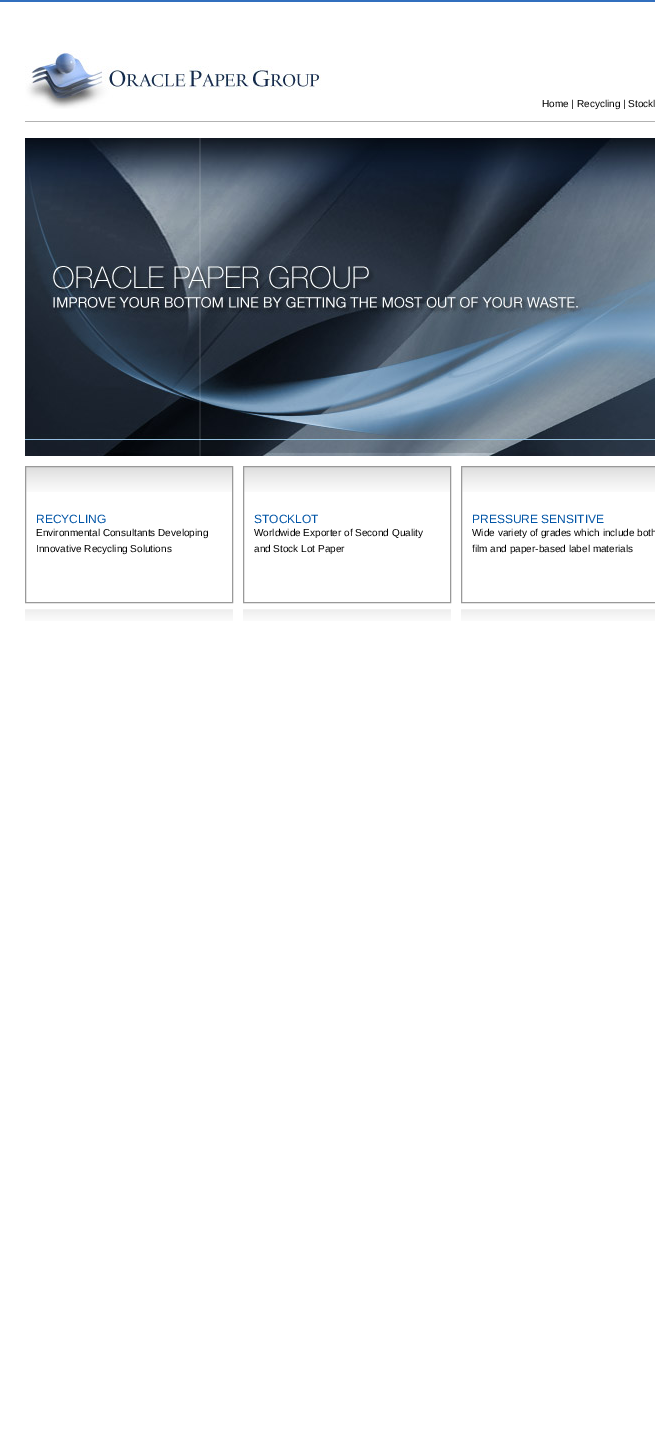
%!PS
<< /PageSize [655 1431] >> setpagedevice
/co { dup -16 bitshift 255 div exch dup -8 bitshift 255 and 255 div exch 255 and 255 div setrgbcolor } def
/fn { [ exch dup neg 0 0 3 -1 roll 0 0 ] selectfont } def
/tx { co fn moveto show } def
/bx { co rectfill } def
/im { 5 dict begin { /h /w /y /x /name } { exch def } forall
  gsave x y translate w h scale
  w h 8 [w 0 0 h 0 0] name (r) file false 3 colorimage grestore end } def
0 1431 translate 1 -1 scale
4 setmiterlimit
0 0 655 1431 16#FFFFFF bx
0 0 655 2 16#316FBE bx
(media/1.raw) 25 50 296 59 im
25 121 630 1 16#B2B2B2 bx
(media/2.raw) 25 138 630 318 im
(media/3.raw) 26 467 206 25 im
16#999999 co
25.5 466.5 207 136 rectstroke
(media/4.raw) 25 609 208 12 im
(media/3.raw) 244 467 206 25 im
243.5 466.5 207 136 rectstroke
(media/4.raw) 243 609 208 12 im
(media/5.raw) 462 467 193 25 im
461.5 466.5 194 136 rectstroke
(media/6.raw) 461 609 194 12 im
(Home | Recycling | Stockl) 542 107 /LiberationSans-Regular 10 16#000000 tx
(RECYCLING) 36 523 /LiberationSans-Regular 12 16#0054A6 tx
(Environmental Consultants Developing) 36 536 /LiberationSans-Regular 10 16#000000 tx
(Innovative Recycling Solutions) 36 552 /LiberationSans-Regular 10 16#000000 tx
(STOCKLOT) 254 523 /LiberationSans-Regular 12 16#0054A6 tx
(Worldwide Exporter of Second Quality) 254 536 /LiberationSans-Regular 10 16#000000 tx
(and Stock Lot Paper) 254 552 /LiberationSans-Regular 10 16#000000 tx
(PRESSURE SENSITIVE) 472 523 /LiberationSans-Regular 12 16#0054A6 tx
(Wide variety of grades which include both) 472 536 /LiberationSans-Regular 10 16#000000 tx
(film and paper-based label materials) 472 552 /LiberationSans-Regular 10 16#000000 tx
showpage
